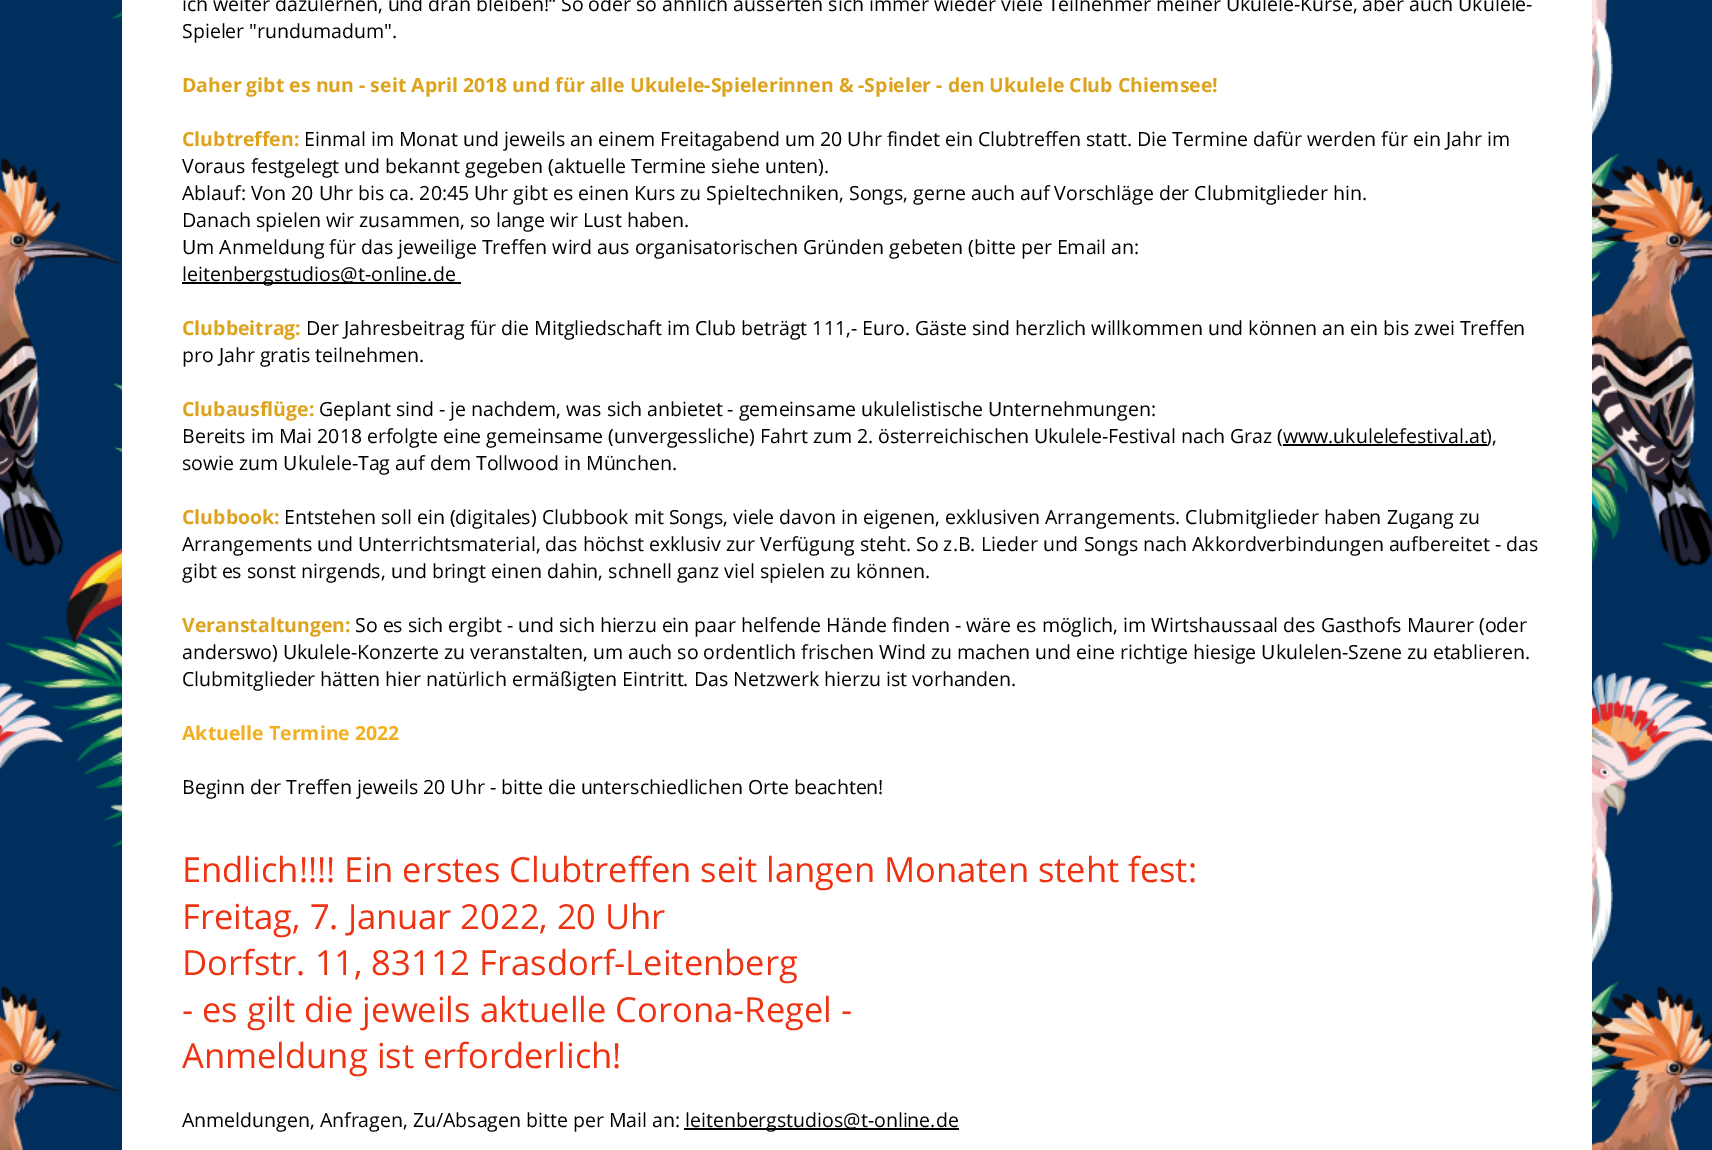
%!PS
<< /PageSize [1712 1150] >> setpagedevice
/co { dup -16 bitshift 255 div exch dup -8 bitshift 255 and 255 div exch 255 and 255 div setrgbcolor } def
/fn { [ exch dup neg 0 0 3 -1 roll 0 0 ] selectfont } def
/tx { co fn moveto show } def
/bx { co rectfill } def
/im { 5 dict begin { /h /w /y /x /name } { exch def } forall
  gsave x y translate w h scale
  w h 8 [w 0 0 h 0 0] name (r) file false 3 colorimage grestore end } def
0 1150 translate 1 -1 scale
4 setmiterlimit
0 0 1712 1150 16#002E5D bx
(media/1.raw) 0 0 1712 1150 im
122 0 1470 1150 16#FFFFFF bx
182 282 279 2 16#000000 bx
1283 444 204 2 16#000000 bx
684 1128 275 2 16#000000 bx
(ich weiter dazulernen, und dran bleiben!“ So oder so ähnlich äusserten sich immer wieder viele Teilnehmer meiner Ukulele-Kurse, aber auch Ukulele-) 182 11 /OpenSans-Regular 19.5 16#000000 tx
(Spieler "rundumadum".) 182 38 /OpenSans-Regular 19.5 16#000000 tx
(Daher gibt es nun - seit April 2018 und für alle Ukulele-Spielerinnen & -Spieler - den Ukulele Club Chiemsee!) 182 92 /OpenSans-Bold 19.5 16#DDA31E tx
(Clubtreffen:) 182 146 /OpenSans-Bold 19.5 16#DDA31E tx
(Einmal im Monat und jeweils an einem Freitagabend um 20 Uhr findet ein Clubtreffen statt. Die Termine dafür werden für ein Jahr im) 304 146 /OpenSans-Regular 19.5 16#000000 tx
(Voraus festgelegt und bekannt gegeben \(aktuelle Termine siehe unten\).) 182 173 /OpenSans-Regular 19.5 16#000000 tx
(Ablauf: Von 20 Uhr bis ca. 20:45 Uhr gibt es einen Kurs zu Spieltechniken, Songs, gerne auch auf Vorschläge der Clubmitglieder hin.) 182 200 /OpenSans-Regular 19.5 16#000000 tx
(Danach spielen wir zusammen, so lange wir Lust haben.) 182 227 /OpenSans-Regular 19.5 16#000000 tx
(Um Anmeldung für das jeweilige Treffen wird aus organisatorischen Gründen gebeten \(bitte per Email an:) 182 254 /OpenSans-Regular 19.5 16#000000 tx
(leitenbergstudios@t-online.de) 182 281 /OpenSans-Regular 19.5 16#000000 tx
(Clubbeitrag:) 182 335 /OpenSans-Bold 19.5 16#DDA31E tx
(Der Jahresbeitrag für die Mitgliedschaft im Club beträgt 111,- Euro. Gäste sind herzlich willkommen und können an ein bis zwei Treffen) 306 335 /OpenSans-Regular 19.5 16#000000 tx
(pro Jahr gratis teilnehmen.) 182 362 /OpenSans-Regular 19.5 16#000000 tx
(Clubausflüge:) 182 416 /OpenSans-Bold 19.5 16#DDA31E tx
(Geplant sind - je nachdem, was sich anbietet - gemeinsame ukulelistische Unternehmungen:) 319 416 /OpenSans-Regular 19.5 16#000000 tx
(Bereits im Mai 2018 erfolgte eine gemeinsame \(unvergessliche\) Fahrt zum 2. österreichischen Ukulele-Festival nach Graz \(www.ukulelefestival.at) 182 443 /OpenSans-Regular 19.5 16#000000 tx
(\),) 1486 443 /OpenSans-Regular 19.5 16#000000 tx
(sowie zum Ukulele-Tag auf dem Tollwood in München.) 182 470 /OpenSans-Regular 19.5 16#000000 tx
(Clubbook:) 182 524 /OpenSans-Bold 19.5 16#DDA31E tx
(Entstehen soll ein \(digitales\) Clubbook mit Songs, viele davon in eigenen, exklusiven Arrangements. Clubmitglieder haben Zugang zu) 284 524 /OpenSans-Regular 19.5 16#000000 tx
(Arrangements und Unterrichtsmaterial, das höchst exklusiv zur Verfügung steht. So z.B. Lieder und Songs nach Akkordverbindungen aufbereitet - das) 182 551 /OpenSans-Regular 19.5 16#000000 tx
(gibt es sonst nirgends, und bringt einen dahin, schnell ganz viel spielen zu können.) 182 578 /OpenSans-Regular 19.5 16#000000 tx
(Veranstaltungen:) 182 632 /OpenSans-Bold 19.5 16#DDA31E tx
(So es sich ergibt - und sich hierzu ein paar helfende Hände finden - wäre es möglich, im Wirtshaussaal des Gasthofs Maurer \(oder) 355 632 /OpenSans-Regular 19.5 16#000000 tx
(anderswo\) Ukulele-Konzerte zu veranstalten, um auch so ordentlich frischen Wind zu machen und eine richtige hiesige Ukulelen-Szene zu etablieren.) 182 659 /OpenSans-Regular 19.5 16#000000 tx
(Clubmitglieder hätten hier natürlich ermäßigten Eintritt. Das Netzwerk hierzu ist vorhanden.) 182 686 /OpenSans-Regular 19.5 16#000000 tx
(Aktuelle Termine 2022) 182 740 /OpenSans-Bold 19.5 16#F2B021 tx
(Beginn der Treffen jeweils 20 Uhr - bitte die unterschiedlichen Orte beachten!) 182 794 /OpenSans-Regular 19.5 16#000000 tx
(Endlich!!!! Ein erstes Clubtreffen seit langen Monaten steht fest:) 182 882 /OpenSans-Regular 34.5 16#ED3312 tx
(Freitag, 7. Januar 2022, 20 Uhr) 182 929 /OpenSans-Regular 34.5 16#ED3312 tx
(Dorfstr. 11, 83112 Frasdorf-Leitenberg) 182 975 /OpenSans-Regular 34.5 16#ED3312 tx
(- es gilt die jeweils aktuelle Corona-Regel -) 182 1022 /OpenSans-Regular 34.5 16#ED3312 tx
(Anmeldung ist erforderlich!) 182 1068 /OpenSans-Regular 34.5 16#ED3312 tx
(Anmeldungen, Anfragen, Zu/Absagen bitte per Mail an:) 182 1127 /OpenSans-Regular 19.5 16#000000 tx
(leitenbergstudios@t-online.de) 685 1127 /OpenSans-Regular 19.5 16#000000 tx
showpage
